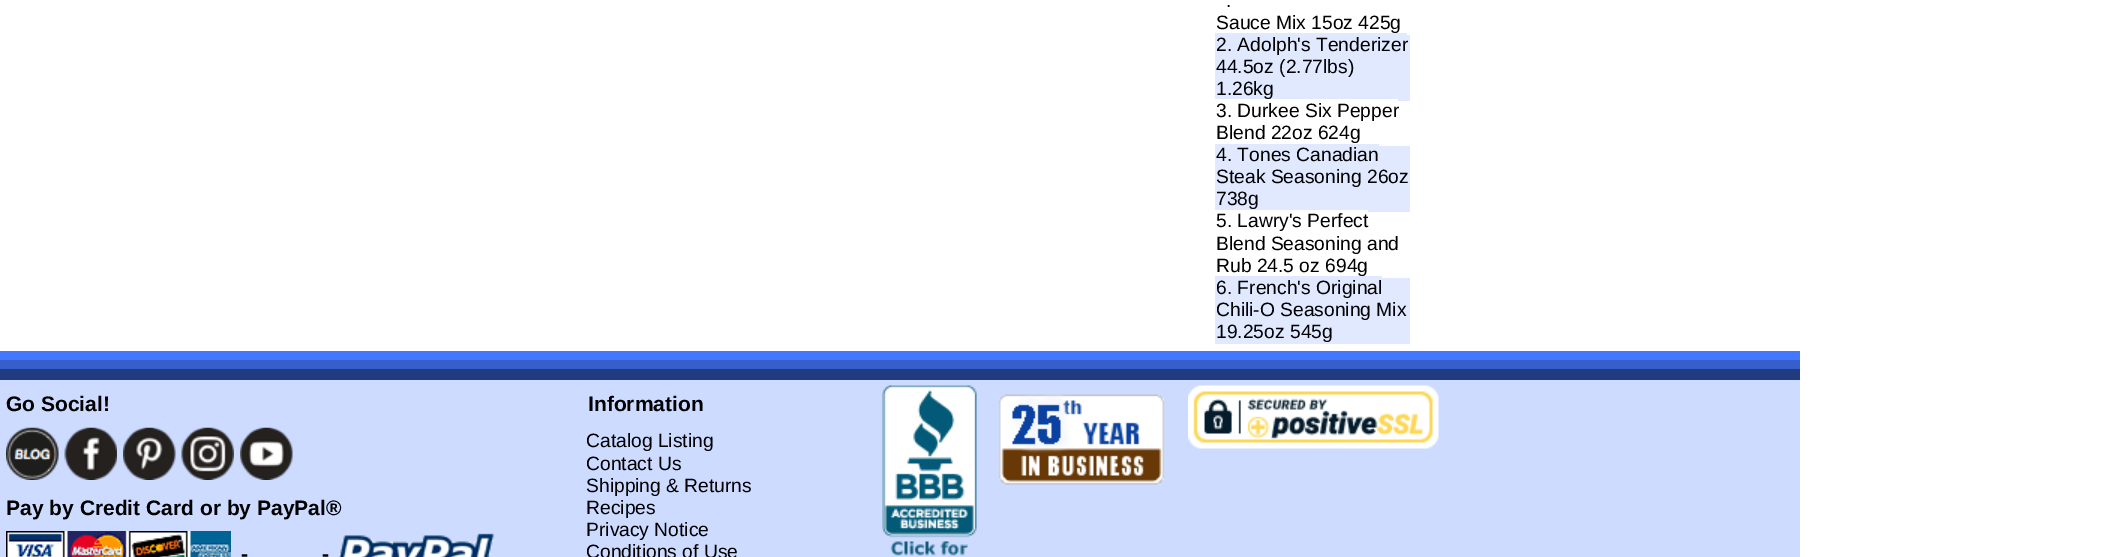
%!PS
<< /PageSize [2110 557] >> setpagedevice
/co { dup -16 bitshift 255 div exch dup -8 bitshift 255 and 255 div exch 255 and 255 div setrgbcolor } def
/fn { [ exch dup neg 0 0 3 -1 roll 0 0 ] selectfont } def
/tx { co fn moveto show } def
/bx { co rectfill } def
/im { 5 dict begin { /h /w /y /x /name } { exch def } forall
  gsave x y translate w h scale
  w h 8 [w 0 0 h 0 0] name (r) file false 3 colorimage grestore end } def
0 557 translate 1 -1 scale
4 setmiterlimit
0 0 2110 557 16#FFFFFF bx
1215 35 195 66 16#E0E9FF bx
1215 33 192 2 16#E0E9FF bx
1215 99 183 2 16#FFFFFF bx
1215 146 195 66 16#E0E9FF bx
1215 144 164 2 16#E0E9FF bx
1215 210 153 2 16#FFFFFF bx
1215 278 195 66 16#E0E9FF bx
1215 276 167 2 16#E0E9FF bx
0 380 1800 177 16#CCDBFF bx
0 351 1800 9 16#4377FF bx
0 360 1800 9 16#365FCC bx
0 369 1800 11 16#213B7F bx
(media/1.raw) 6 427 53 53 im
(media/2.raw) 64 427 53 53 im
(media/3.raw) 123 427 53 53 im
(media/4.raw) 181 427 53 53 im
(media/5.raw) 240 427 53 53 im
(media/6.raw) 6 531 225 26 im
(media/7.raw) 338 533 156 24 im
(media/8.raw) 882 385 95 171 im
(media/9.raw) 998 394 167 91 im
(media/10.raw) 1188 385 251 64 im
(.) 1226 7 /LiberationSans-Regular 19.25 16#000000 tx
(Sauce Mix 15oz 425g) 1216 29 /LiberationSans-Regular 19.25 16#000000 tx
(2. Adolph's Tenderizer) 1216 51 /LiberationSans-Regular 19.25 16#000000 tx
(44.5oz \(2.77lbs\)) 1216 73 /LiberationSans-Regular 19.25 16#000000 tx
(1.26kg) 1216 95 /LiberationSans-Regular 19.25 16#000000 tx
(3. Durkee Six Pepper) 1216 117 /LiberationSans-Regular 19.25 16#000000 tx
(Blend 22oz 624g) 1216 139 /LiberationSans-Regular 19.25 16#000000 tx
(4. Tones Canadian) 1216 161 /LiberationSans-Regular 19.25 16#000000 tx
(Steak Seasoning 26oz) 1216 183 /LiberationSans-Regular 19.25 16#000000 tx
(738g) 1216 205 /LiberationSans-Regular 19.25 16#000000 tx
(5. Lawry's Perfect) 1216 227 /LiberationSans-Regular 19.25 16#000000 tx
(Blend Seasoning and) 1216 250 /LiberationSans-Regular 19.25 16#000000 tx
(Rub 24.5 oz 694g) 1216 272 /LiberationSans-Regular 19.25 16#000000 tx
(6. French's Original) 1216 294 /LiberationSans-Regular 19.25 16#000000 tx
(Chili-O Seasoning Mix) 1216 316 /LiberationSans-Regular 19.25 16#000000 tx
(19.25oz 545g) 1216 338 /LiberationSans-Regular 19.25 16#000000 tx
(Go Social!) 6 411 /LiberationSans-Bold 21 16#000000 tx
(Pay by Credit Card or by PayPal®) 6 515 /LiberationSans-Bold 21 16#000000 tx
(-) 241 561 /LiberationSans-Bold 21 16#000000 tx
(-) 322 561 /LiberationSans-Bold 21 16#000000 tx
(Information) 588 411 /LiberationSans-Bold 21 16#000000 tx
(Catalog Listing) 586 447 /LiberationSans-Regular 19.25 16#000000 tx
(Contact Us) 586 470 /LiberationSans-Regular 19.25 16#000000 tx
(Shipping & Returns) 586 492 /LiberationSans-Regular 19.25 16#000000 tx
(Recipes) 586 514 /LiberationSans-Regular 19.25 16#000000 tx
(Privacy Notice) 586 536 /LiberationSans-Regular 19.25 16#000000 tx
(Conditions of Use) 586 558 /LiberationSans-Regular 19.25 16#000000 tx
showpage
